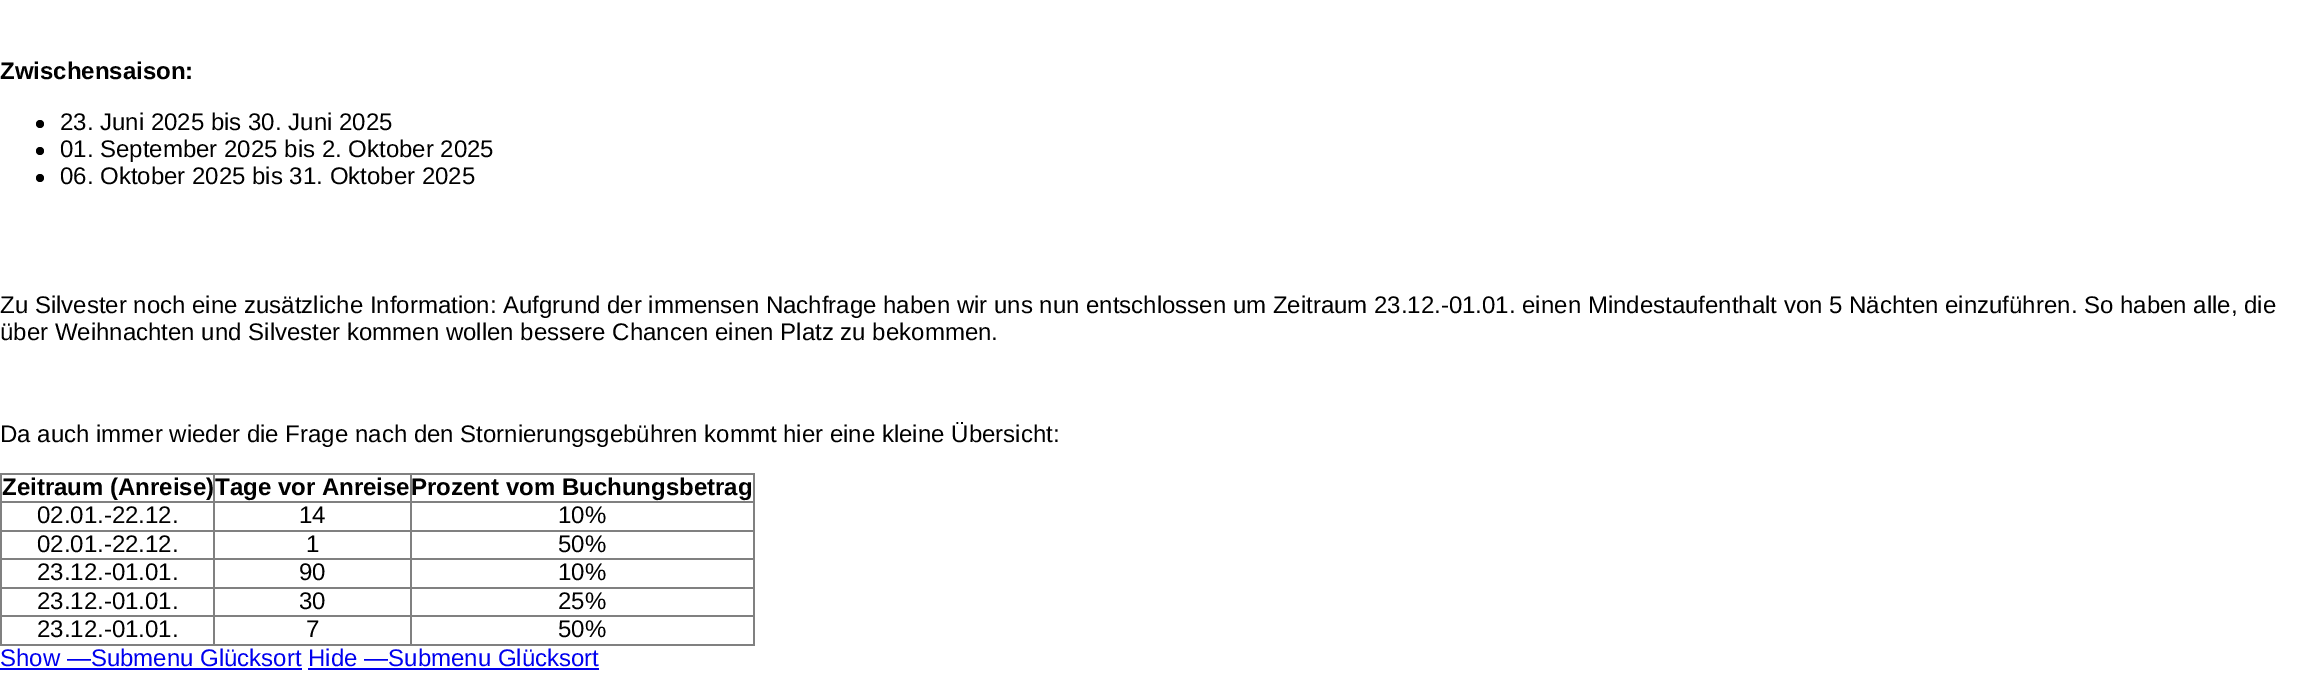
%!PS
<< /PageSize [2322 689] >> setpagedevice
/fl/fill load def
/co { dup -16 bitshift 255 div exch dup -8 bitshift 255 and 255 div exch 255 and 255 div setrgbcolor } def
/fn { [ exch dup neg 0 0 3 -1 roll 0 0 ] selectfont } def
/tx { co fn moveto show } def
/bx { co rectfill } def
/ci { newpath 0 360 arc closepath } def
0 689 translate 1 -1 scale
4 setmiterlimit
0 0 2322 689 16#FFFFFF bx
16#000000 co
40 124 4 ci fl
40 151 4 ci fl
40 178 4 ci fl
0 473 755 2 16#808080 bx
753 473 2 172 16#808080 bx
0 644 755 2 16#808080 bx
0 473 2 172 16#808080 bx
410 501 345 2 16#808080 bx
410 530 345 2 16#808080 bx
410 558 345 2 16#808080 bx
410 587 345 2 16#808080 bx
410 615 345 2 16#808080 bx
410 615 2 30 16#808080 bx
213 615 198 2 16#808080 bx
410 587 2 30 16#808080 bx
213 587 198 2 16#808080 bx
410 558 2 30 16#808080 bx
213 558 198 2 16#808080 bx
410 530 2 30 16#808080 bx
213 530 198 2 16#808080 bx
410 501 2 30 16#808080 bx
213 501 198 2 16#808080 bx
213 615 2 30 16#808080 bx
0 615 215 2 16#808080 bx
213 587 2 30 16#808080 bx
0 587 215 2 16#808080 bx
213 558 2 30 16#808080 bx
0 558 215 2 16#808080 bx
213 530 2 30 16#808080 bx
0 530 215 2 16#808080 bx
213 501 2 30 16#808080 bx
0 501 215 2 16#808080 bx
213 473 2 30 16#808080 bx
410 473 2 30 16#808080 bx
0 668 302 2 16#0000EE bx
308 668 291 2 16#0000EE bx
(Zwischensaison:) 0 79 /LiberationSans-Bold 24 16#000000 tx
(23. Juni 2025 bis 30. Juni 2025) 60 130 /LiberationSans-Regular 24 16#000000 tx
(01. September 2025 bis 2. Oktober 2025) 60 157 /LiberationSans-Regular 24 16#000000 tx
(06. Oktober 2025 bis 31. Oktober 2025) 60 184 /LiberationSans-Regular 24 16#000000 tx
(Zu Silvester noch eine zusätzliche Information: Aufgrund der immensen Nachfrage haben wir uns nun entschlossen um Zeitraum 23.12.-01.01. einen Mindestaufenthalt von 5 Nächten einzuführen. So haben alle, die) 0 313 /LiberationSans-Regular 24 16#000000 tx
(über Weihnachten und Silvester kommen wollen bessere Chancen einen Platz zu bekommen.) 0 340 /LiberationSans-Regular 24 16#000000 tx
(Da auch immer wieder die Frage nach den Stornierungsgebühren kommt hier eine kleine Übersicht:) 0 442 /LiberationSans-Regular 24 16#000000 tx
(Zeitraum \(Anreise\)) 2 495 /LiberationSans-Bold 24 16#000000 tx
(Tage vor Anreise) 215 495 /LiberationSans-Bold 24 16#000000 tx
(Prozent vom Buchungsbetrag) 411 495 /LiberationSans-Bold 24 16#000000 tx
(02.01.-22.12.) 37 523 /LiberationSans-Regular 24 16#000000 tx
(14) 299 523 /LiberationSans-Regular 24 16#000000 tx
(10%) 558 523 /LiberationSans-Regular 24 16#000000 tx
(02.01.-22.12.) 37 552 /LiberationSans-Regular 24 16#000000 tx
(1) 306 552 /LiberationSans-Regular 24 16#000000 tx
(50%) 558 552 /LiberationSans-Regular 24 16#000000 tx
(23.12.-01.01.) 37 580 /LiberationSans-Regular 24 16#000000 tx
(90) 299 580 /LiberationSans-Regular 24 16#000000 tx
(10%) 558 580 /LiberationSans-Regular 24 16#000000 tx
(23.12.-01.01.) 37 609 /LiberationSans-Regular 24 16#000000 tx
(30) 299 609 /LiberationSans-Regular 24 16#000000 tx
(25%) 558 609 /LiberationSans-Regular 24 16#000000 tx
(23.12.-01.01.) 37 637 /LiberationSans-Regular 24 16#000000 tx
(7) 306 637 /LiberationSans-Regular 24 16#000000 tx
(50%) 558 637 /LiberationSans-Regular 24 16#000000 tx
(Show —Submenu Glücksort Hide —Submenu Glücksort) 0 666 /LiberationSans-Regular 24 16#0000EE tx
showpage
